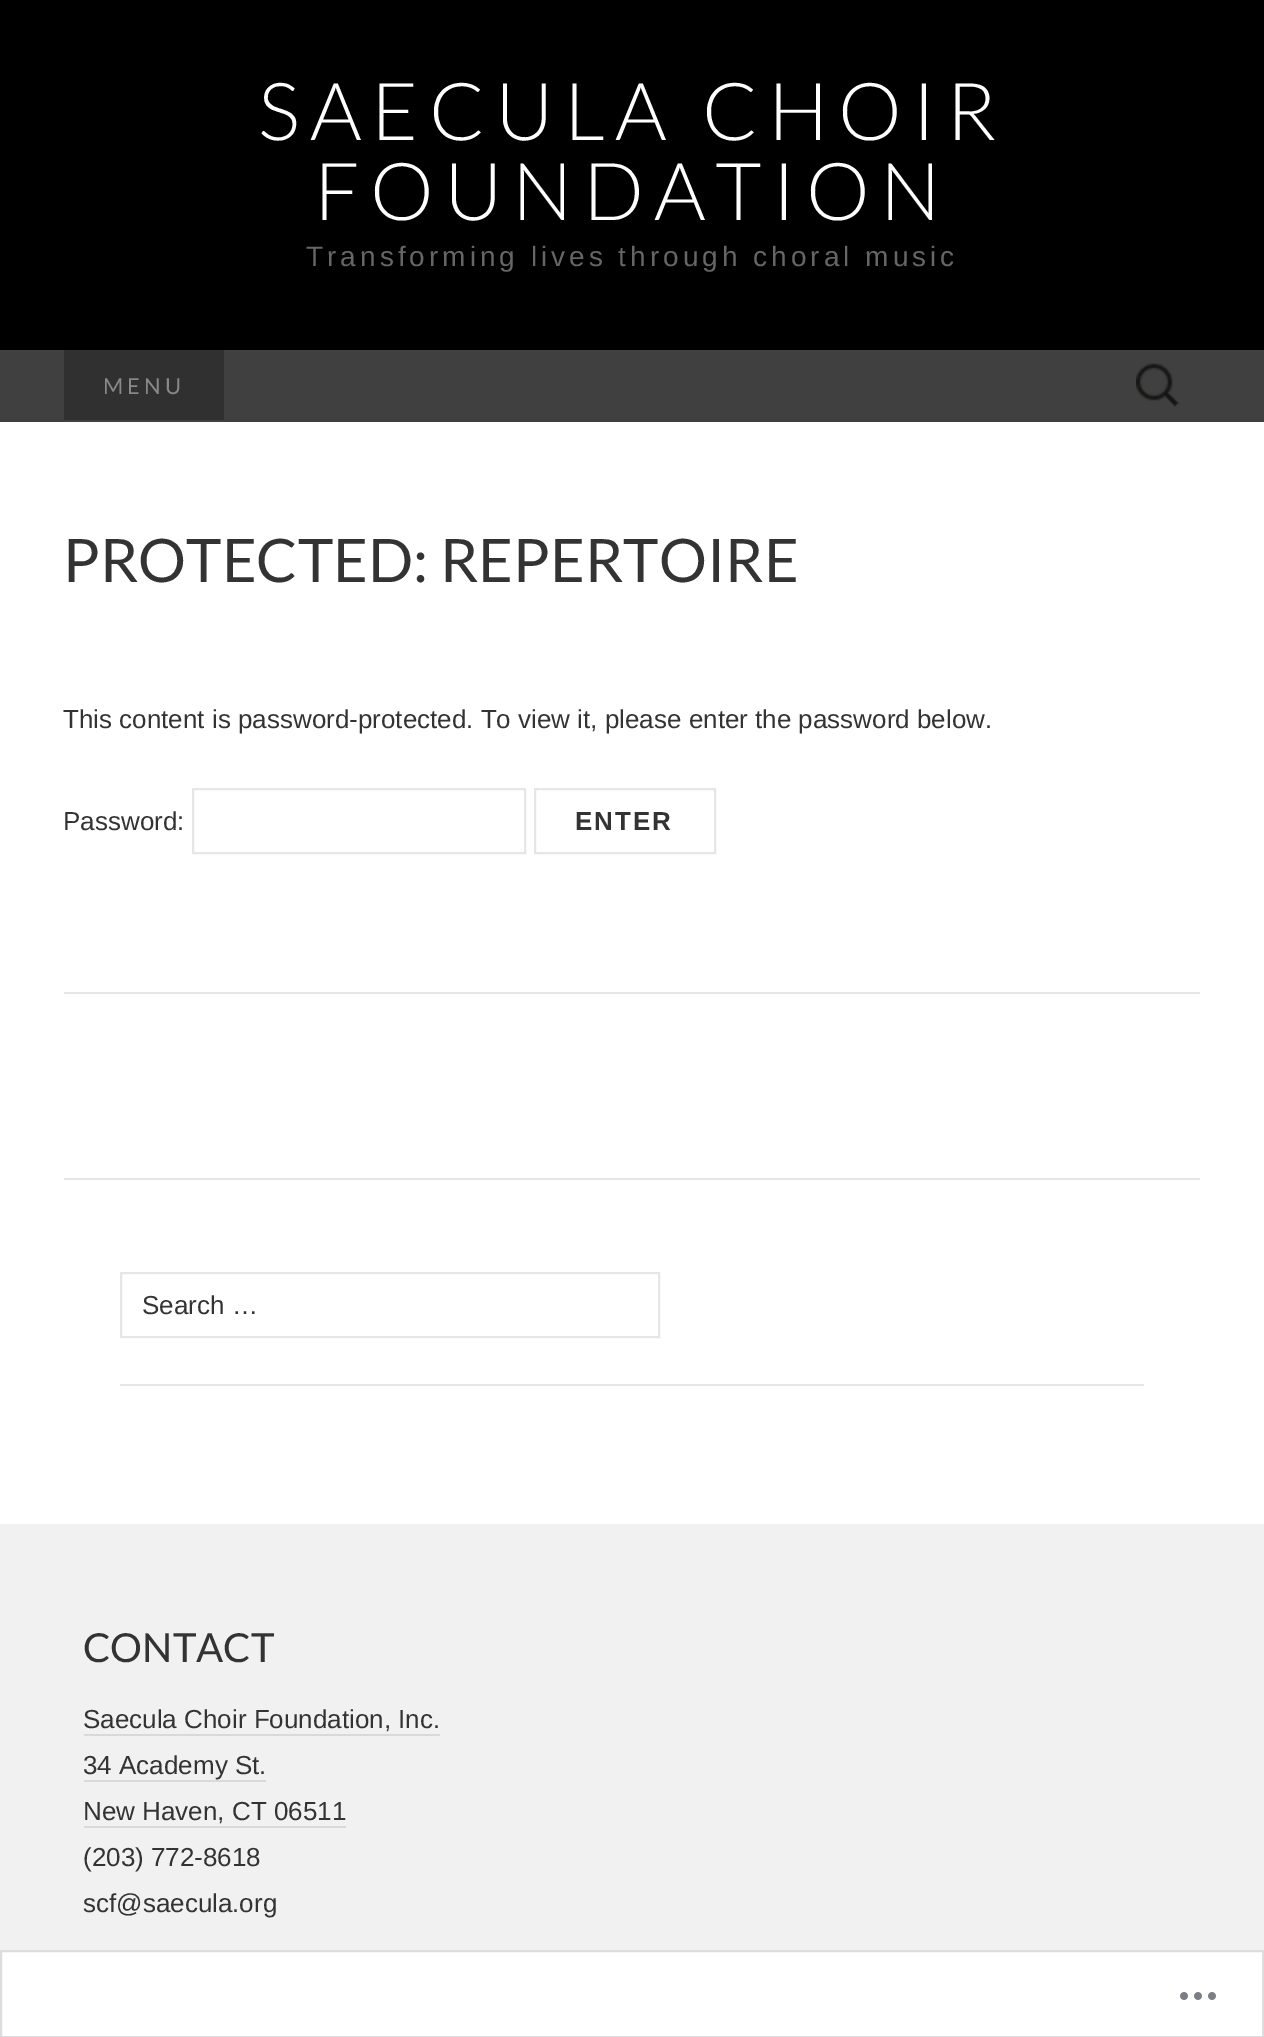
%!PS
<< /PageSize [1264 2037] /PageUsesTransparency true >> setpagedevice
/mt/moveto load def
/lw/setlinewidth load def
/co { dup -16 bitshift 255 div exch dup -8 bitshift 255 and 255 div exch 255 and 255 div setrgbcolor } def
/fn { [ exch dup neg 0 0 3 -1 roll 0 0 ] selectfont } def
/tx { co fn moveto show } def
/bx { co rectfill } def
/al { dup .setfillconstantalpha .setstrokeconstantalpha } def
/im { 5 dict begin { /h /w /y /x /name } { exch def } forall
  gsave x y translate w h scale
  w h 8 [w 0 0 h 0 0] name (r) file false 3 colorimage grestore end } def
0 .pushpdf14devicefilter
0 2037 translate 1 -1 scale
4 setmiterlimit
0 0 1264 2037 16#FFFFFF bx
0 0 1264 350 16#000000 bx
0 350 1264 72 16#404040 bx
64 350 160 70 16#303030 bx
(media/1.raw) 1136 363 43 44 im
64 1178 1136 2 16#E6E6E6 bx
64 992 1136 2 16#E6E6E6 bx
2 lw
193 789 332 64 rectstroke
535 789 180 64 rectstroke
120 1384 1024 2 16#E6E6E6 bx
121 1273 538 64 rectstroke
0 1524 1264 426 16#F1F1F1 bx
84 1734 356 2 16#D9D9D9 bx
84 1780 182 2 16#D9D9D9 bx
84 1826 262 2 16#D9D9D9 bx
0.98 al
16#DCDCDE co
1 1951 1262 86 rectstroke
1 al
(media/2.raw) 1180 1992 36 8 im
/Lato-Light 80 fn
16#FFFFFF co
258 140 mt 10 0 (SAECULA CHOIR) ashow
314 220 mt 10 0 (FOUNDATION) ashow
/LiberationSans-Regular 28 fn
16#666666 co
306 266 mt 4 0 (Transforming lives through choral music) ashow
/Lato-Regular 22 fn
16#888888 co
103 394 mt 4 0 (MENU) ashow
(PROTECTED: REPERTOIRE) 63 582 /Lato-Regular 60 16#333333 tx
(This content is password-protected. To view it, please enter the password below.) 63 728 /LiberationSans-Regular 26 16#333333 tx
(Password:) 63 830 /LiberationSans-Regular 26 16#333333 tx
/LiberationSans-Bold 26 fn
575 830 mt 2 0 (ENTER) ashow
(Search …) 142 1314 /LiberationSans-Regular 26 16#333333 tx
(CONTACT) 83 1662 /Lato-Regular 40 16#333333 tx
(Saecula Choir Foundation, Inc.) 83 1728 /LiberationSans-Regular 26 16#333333 tx
(34 Academy St.) 83 1774 /LiberationSans-Regular 26 16#333333 tx
(New Haven, CT 06511) 83 1820 /LiberationSans-Regular 26 16#333333 tx
(\(203\) 772-8618) 83 1866 /LiberationSans-Regular 26 16#333333 tx
(scf@saecula.org) 83 1912 /LiberationSans-Regular 26 16#333333 tx
.poppdf14devicefilter showpage
